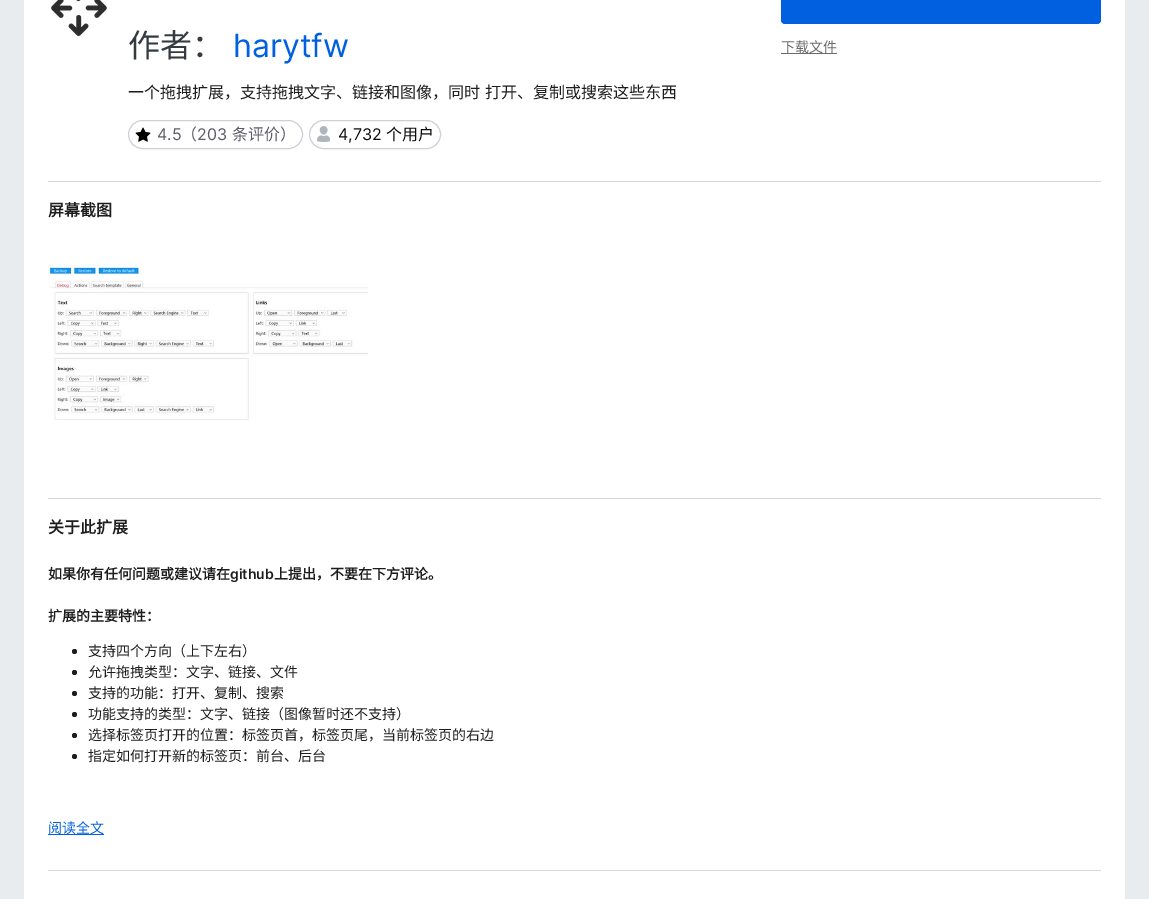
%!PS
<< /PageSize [1149 899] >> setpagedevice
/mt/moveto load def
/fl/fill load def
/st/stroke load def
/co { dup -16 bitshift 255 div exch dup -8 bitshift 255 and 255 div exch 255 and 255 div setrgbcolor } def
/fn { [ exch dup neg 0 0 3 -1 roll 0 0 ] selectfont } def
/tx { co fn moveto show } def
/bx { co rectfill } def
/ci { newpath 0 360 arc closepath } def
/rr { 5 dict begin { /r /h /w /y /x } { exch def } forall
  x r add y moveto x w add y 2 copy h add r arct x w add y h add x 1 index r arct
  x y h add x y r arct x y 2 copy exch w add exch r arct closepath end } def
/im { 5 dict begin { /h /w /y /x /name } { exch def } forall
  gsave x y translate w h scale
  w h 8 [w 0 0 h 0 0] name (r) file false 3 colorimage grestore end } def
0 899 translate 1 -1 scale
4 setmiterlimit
0 0 1149 899 16#E9ECEF bx
24 0 1101 899 16#FFFFFF bx
(media/1.raw) 51 0 56 37 im
16#0060DF co
781 -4 320 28 4 rr fl
781 53 56 1 16#6A6A6A bx
16#CFCFD8 co
128.5 120.5 174 28 14 rr st
(media/2.raw) 135 127 16 15 im
309.5 120.5 131 28 14 rr st
(media/3.raw) 317 126 13 16 im
48 181 1053 1 16#D7D7DB bx
(media/4.raw) 48 264 320 157 im
48 498 1053 1 16#D7D7DB bx
48 870 1053 1 16#D7D7DB bx
16#1D1D1D co
74.5 651.5 2.5 ci fl
74.5 672.5 2.5 ci fl
74.5 693.5 2.5 ci fl
74.5 714.5 2.5 ci fl
74.5 735.5 2.5 ci fl
74.5 756.5 2.5 ci fl
48 834 56 1 16#0060DF bx
(作者：) 128 57 /NotoSansCJKSC-Regular 32 16#343A40 tx
(harytfw) 233 57 /Inter-Regular 32 16#0060DF tx
/NotoSansCJKSC-Regular 16 fn
16#1D1D1D co
128 98 mt 1 0 32 (一个拖拽扩展，支持拖拽文字、链接和图像，同时 打开、复制或搜索这些东西) widthshow
(下载文件) 781 52 /NotoSansCJKSC-Regular 14 16#6A6A6A tx
(4.5) 157 140 /Inter-Regular 16 16#5B5B66 tx
(（) 181 140 /NotoSansCJKSC-Regular 16 16#5B5B66 tx
(203) 197 140 /Inter-Regular 16 16#5B5B66 tx
(条评价）) 232 140 /NotoSansCJKSC-Regular 16 16#5B5B66 tx
(4,732) 338 140 /Inter-Regular 16 16#0C0C0D tx
(个用户) 386 140 /NotoSansCJKSC-Regular 16 16#0C0C0D tx
(屏幕截图) 48 216 /NotoSansCJKSC-Bold 16 16#1D1D1D tx
(关于此扩展) 48 533 /NotoSansCJKSC-Bold 16 16#1D1D1D tx
(如果你有任何问题或建议请在) 48 579 /NotoSansCJKSC-Bold 14 16#1D1D1D tx
(github) 230 579 /Inter-SemiBold 14 16#1D1D1D tx
(上提出，不要在下方评论。) 274 579 /NotoSansCJKSC-Bold 14 16#1D1D1D tx
(扩展的主要特性：) 48 621 /NotoSansCJKSC-Bold 14 16#1D1D1D tx
(支持四个方向（上下左右）) 88 656 /NotoSansCJKSC-Regular 14 16#1D1D1D tx
(允许拖拽类型：文字、链接、文件) 88 677 /NotoSansCJKSC-Regular 14 16#1D1D1D tx
(支持的功能：打开、复制、搜索) 88 698 /NotoSansCJKSC-Regular 14 16#1D1D1D tx
(功能支持的类型：文字、链接（图像暂时还不支持）) 88 719 /NotoSansCJKSC-Regular 14 16#1D1D1D tx
(选择标签页打开的位置：标签页首，标签页尾，当前标签页的右边) 88 740 /NotoSansCJKSC-Regular 14 16#1D1D1D tx
(指定如何打开新的标签页：前台、后台) 88 761 /NotoSansCJKSC-Regular 14 16#1D1D1D tx
(阅读全文) 48 833 /NotoSansCJKSC-Regular 14 16#0060DF tx
showpage
